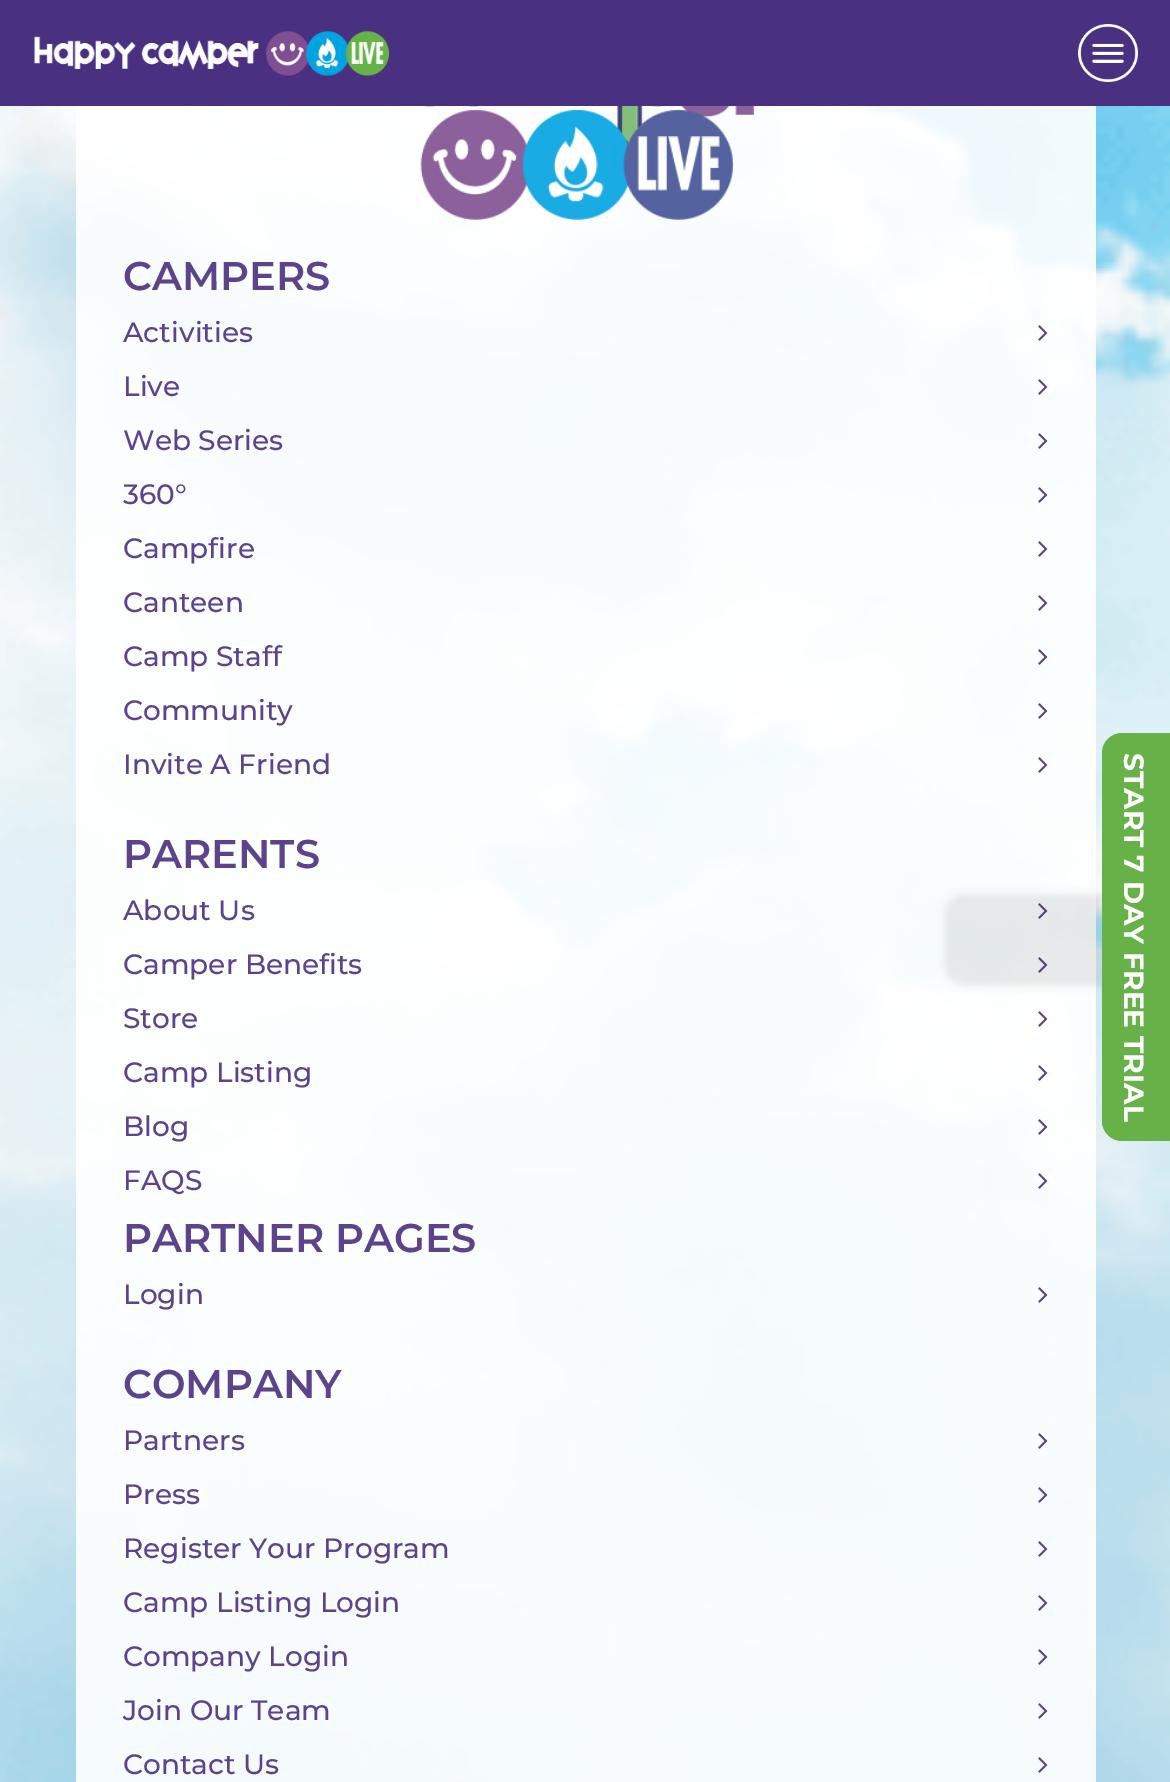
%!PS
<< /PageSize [1170 1782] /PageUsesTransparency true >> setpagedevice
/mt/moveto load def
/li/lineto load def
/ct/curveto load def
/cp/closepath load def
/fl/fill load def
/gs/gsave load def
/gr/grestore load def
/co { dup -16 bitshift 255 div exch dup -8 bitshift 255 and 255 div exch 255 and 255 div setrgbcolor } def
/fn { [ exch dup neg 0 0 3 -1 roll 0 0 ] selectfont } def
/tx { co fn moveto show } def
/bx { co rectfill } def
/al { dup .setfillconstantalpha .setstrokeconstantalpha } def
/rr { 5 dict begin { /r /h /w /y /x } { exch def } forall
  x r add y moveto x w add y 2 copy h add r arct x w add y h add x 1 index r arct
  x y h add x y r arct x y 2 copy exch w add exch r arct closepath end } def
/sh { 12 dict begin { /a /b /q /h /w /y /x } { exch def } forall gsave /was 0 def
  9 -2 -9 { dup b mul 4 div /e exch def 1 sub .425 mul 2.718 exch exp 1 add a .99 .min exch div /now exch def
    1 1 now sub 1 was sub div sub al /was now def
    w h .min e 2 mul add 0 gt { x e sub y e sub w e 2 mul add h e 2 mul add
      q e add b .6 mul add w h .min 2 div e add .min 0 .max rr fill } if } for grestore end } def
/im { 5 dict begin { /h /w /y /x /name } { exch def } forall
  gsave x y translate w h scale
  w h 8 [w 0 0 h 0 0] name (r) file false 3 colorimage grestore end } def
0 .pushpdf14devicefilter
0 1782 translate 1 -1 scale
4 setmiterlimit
0 0 1170 1782 16#FFFFFF bx
(media/1.raw) 0 106 1170 1676 im
0.9 al
76 106 1020 1676 16#FFFFFF bx
1 al
(media/2.raw) 420 106 335 114 im
(media/3.raw) 1038 325 10 16 im
(media/4.raw) 1038 379 10 16 im
(media/5.raw) 1038 433 10 16 im
(media/6.raw) 1038 487 10 16 im
(media/7.raw) 1038 541 10 16 im
(media/8.raw) 1038 595 10 16 im
(media/9.raw) 1038 649 10 16 im
(media/10.raw) 1038 703 10 16 im
(media/11.raw) 1038 757 10 16 im
(media/12.raw) 1038 903 10 16 im
(media/13.raw) 1038 957 10 16 im
(media/14.raw) 1038 1011 10 16 im
(media/15.raw) 1038 1065 10 16 im
(media/16.raw) 1038 1119 10 16 im
(media/17.raw) 1038 1173 10 16 im
(media/18.raw) 1038 1287 10 16 im
(media/19.raw) 1038 1433 10 16 im
(media/20.raw) 1038 1487 10 16 im
(media/21.raw) 1038 1541 10 16 im
(media/22.raw) 1038 1595 10 16 im
(media/23.raw) 1038 1649 10 16 im
(media/24.raw) 1038 1703 10 16 im
(media/25.raw) 1038 1757 10 16 im
0 0 1170 106 16#4A3081 bx
(media/26.raw) 34 31 356 45 im
(media/27.raw) 1078 24 60 58 im
16#000000 co
944 894 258 92 20 4 .07 sh
16#67B248 co
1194 753 mt 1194 1121 li 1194 1132 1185 1141 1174 1141 ct 1122 1141 li 1111 1141 1102 1132 1102 1121 ct 1102 753 li 1102 742 1111 733 1122 733 ct 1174 733 li 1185 733 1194 742 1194 753 ct cp fl
(CAMPERS) 123 290 /Montserrat-SemiBold 40 16#5C448D tx
(Activities) 123 342 /Montserrat-Medium 28 16#5C448D tx
(Live) 123 396 /Montserrat-Medium 28 16#5C448D tx
(Web Series) 123 450 /Montserrat-Medium 28 16#5C448D tx
(360°) 123 504 /Montserrat-Medium 28 16#5C448D tx
(Campfire) 123 558 /Montserrat-Medium 28 16#5C448D tx
(Canteen) 123 612 /Montserrat-Medium 28 16#5C448D tx
(Camp Staff) 123 666 /Montserrat-Medium 28 16#5C448D tx
(Community) 123 720 /Montserrat-Medium 28 16#5C448D tx
(Invite A Friend) 123 774 /Montserrat-Medium 28 16#5C448D tx
(PARENTS) 123 868 /Montserrat-SemiBold 40 16#5C448D tx
(About Us) 123 920 /Montserrat-Medium 28 16#5C448D tx
(Camper Benefits) 123 974 /Montserrat-Medium 28 16#5C448D tx
(Store) 123 1028 /Montserrat-Medium 28 16#5C448D tx
(Camp Listing) 123 1082 /Montserrat-Medium 28 16#5C448D tx
(Blog) 123 1136 /Montserrat-Medium 28 16#5C448D tx
(FAQS) 123 1190 /Montserrat-Medium 28 16#5C448D tx
(PARTNER PAGES) 123 1252 /Montserrat-SemiBold 40 16#5C448D tx
(Login) 123 1304 /Montserrat-Medium 28 16#5C448D tx
(COMPANY) 123 1398 /Montserrat-SemiBold 40 16#5C448D tx
(Partners) 123 1450 /Montserrat-Medium 28 16#5C448D tx
(Press) 123 1504 /Montserrat-Medium 28 16#5C448D tx
(Register Your Program) 123 1558 /Montserrat-Medium 28 16#5C448D tx
(Camp Listing Login) 123 1612 /Montserrat-Medium 28 16#5C448D tx
(Company Login) 123 1666 /Montserrat-Medium 28 16#5C448D tx
(Join Our Team) 123 1720 /Montserrat-Medium 28 16#5C448D tx
(Contact Us) 123 1774 /Montserrat-Medium 28 16#5C448D tx
/Montserrat-Bold 28 fn
16#FFFFFF co
gs 1124 753 translate 90 rotate 0 0 mt (START 7 DAY FREE TRIAL) show gr
.poppdf14devicefilter showpage
